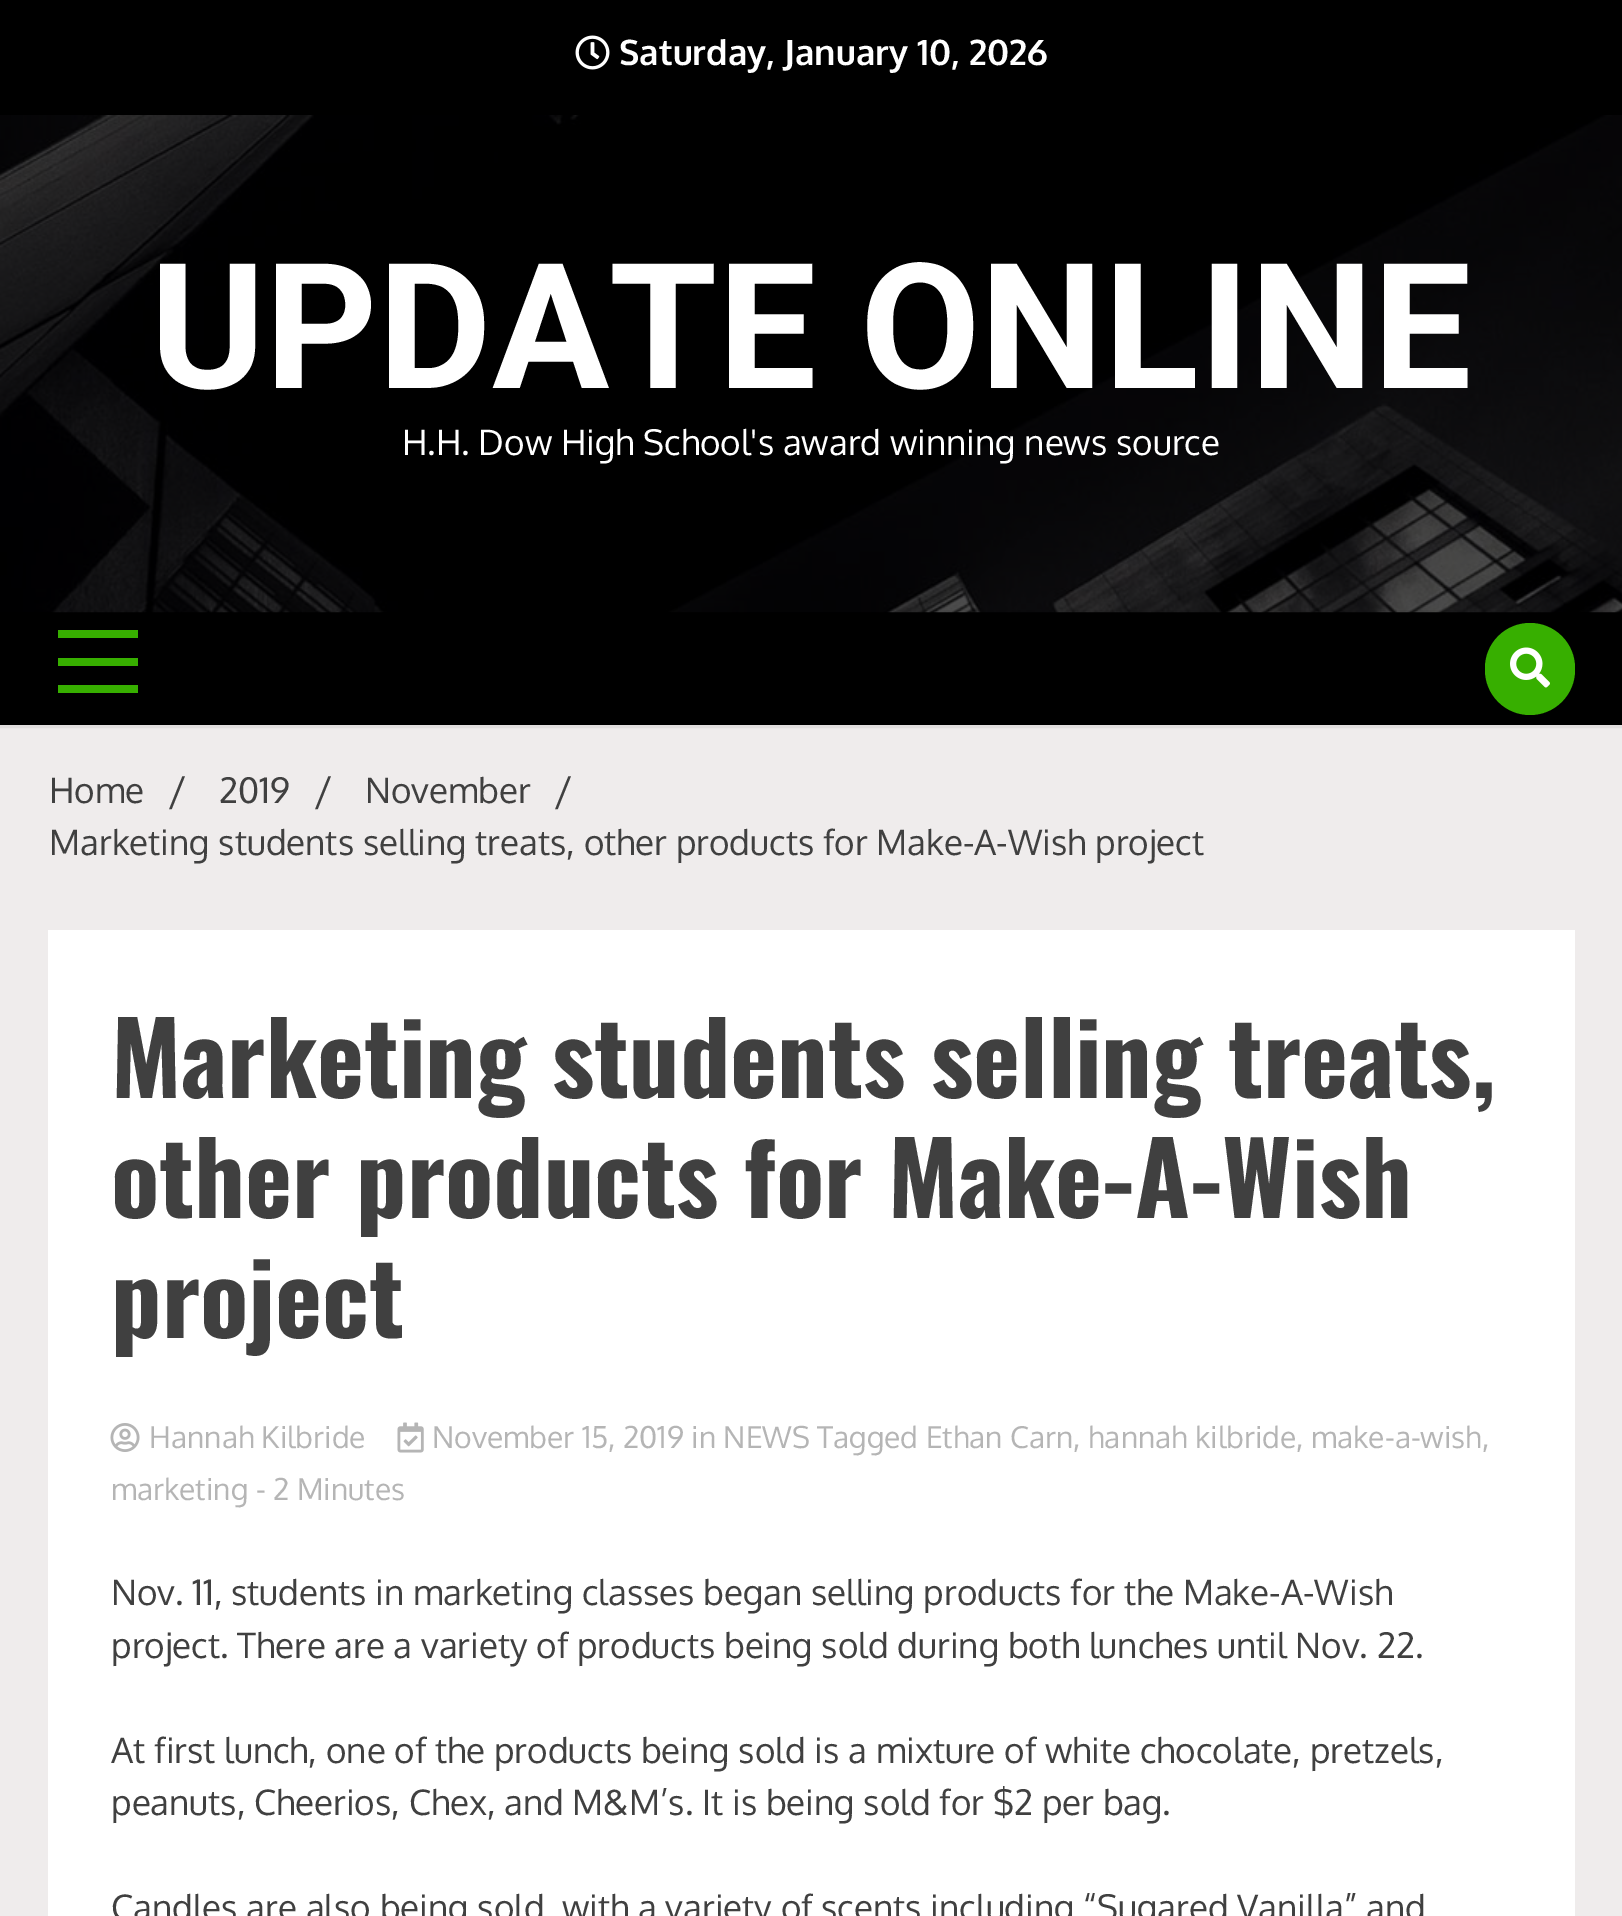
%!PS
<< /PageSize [1622 1916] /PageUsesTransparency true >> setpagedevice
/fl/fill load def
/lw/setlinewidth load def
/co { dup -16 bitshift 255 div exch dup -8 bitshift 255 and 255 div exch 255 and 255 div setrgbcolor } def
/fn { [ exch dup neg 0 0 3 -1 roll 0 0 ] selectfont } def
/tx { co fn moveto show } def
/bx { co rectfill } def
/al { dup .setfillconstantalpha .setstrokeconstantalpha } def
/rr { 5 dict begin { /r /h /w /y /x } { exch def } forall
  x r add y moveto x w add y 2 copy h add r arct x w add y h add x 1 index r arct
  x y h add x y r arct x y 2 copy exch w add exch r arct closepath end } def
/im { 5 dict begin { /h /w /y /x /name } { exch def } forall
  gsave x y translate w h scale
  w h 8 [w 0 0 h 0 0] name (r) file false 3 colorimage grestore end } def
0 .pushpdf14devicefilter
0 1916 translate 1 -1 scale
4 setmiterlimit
0 0 1622 1916 16#EFECEC bx
0 0 1622 613 16#000000 bx
(media/1.raw) 575 35 35 35 im
(media/2.raw) 0 115 1622 498 im
0.06 al
3 lw
-.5 611.5 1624 115 rectstroke
1 al
0 613 1622 112 16#000000 bx
58 630 80 8 16#37AF00 bx
58 658 80 8 16#37AF00 bx
58 685 80 8 16#37AF00 bx
1485 623 90 92 45 rr fl
(media/3.raw) 1510 647 40 41 im
48 930 1527 986 16#FFFFFF bx
(media/4.raw) 110 1423 30 29 im
(media/5.raw) 397 1422 27 31 im
(Saturday, January 10, 2026) 619 65 /Oxygen-Bold 35 16#FFFFFF tx
(UPDATE ONLINE) 150 388 /Roboto-Bold 175 16#FFFFFF tx
(H.H. Dow High School's award winning news source) 402 455 /Oxygen-Regular 35 16#FFFFFF tx
(Home) 49 803 /Oxygen-Regular 35 16#404040 tx
(/) 168 805 /Oxygen-Regular 40 16#404040 tx
(2019) 219 803 /Oxygen-Regular 35 16#404040 tx
(/) 314 805 /Oxygen-Regular 40 16#404040 tx
(November) 365 803 /Oxygen-Regular 35 16#404040 tx
(/) 554 805 /Oxygen-Regular 40 16#404040 tx
(Marketing students selling treats, other products for Make-A-Wish project) 49 855 /Oxygen-Regular 35 16#404040 tx
(Marketing students selling treats,) 111 1098 /Oswald-Bold 100 16#404040 tx
(other products for Make-A-Wish) 111 1218 /Oswald-Bold 100 16#404040 tx
(project) 111 1338 /Oswald-Bold 100 16#404040 tx
(Hannah Kilbride) 149 1448 /Oxygen-Regular 30 16#B5B5B5 tx
(November 15, 2019 in NEWS Tagged Ethan Carn, hannah kilbride, make-a-wish,) 432 1448 /Oxygen-Regular 30 16#B5B5B5 tx
(marketing - 2 Minutes) 111 1500 /Oxygen-Regular 30 16#B5B5B5 tx
(Nov. 11, students in marketing classes began selling products for the Make-A-Wish) 111 1605 /Oxygen-Regular 35 16#404040 tx
(project. There are a variety of products being sold during both lunches until Nov. 22.) 111 1658 /Oxygen-Regular 35 16#404040 tx
(At first lunch, one of the products being sold is a mixture of white chocolate, pretzels,) 111 1763 /Oxygen-Regular 35 16#404040 tx
(peanuts, Cheerios, Chex, and M&M’s. It is being sold for $2 per bag.) 111 1815 /Oxygen-Regular 35 16#404040 tx
(Candles are also being sold, with a variety of scents including “Sugared Vanilla” and) 111 1920 /Oxygen-Regular 35 16#404040 tx
.poppdf14devicefilter showpage
